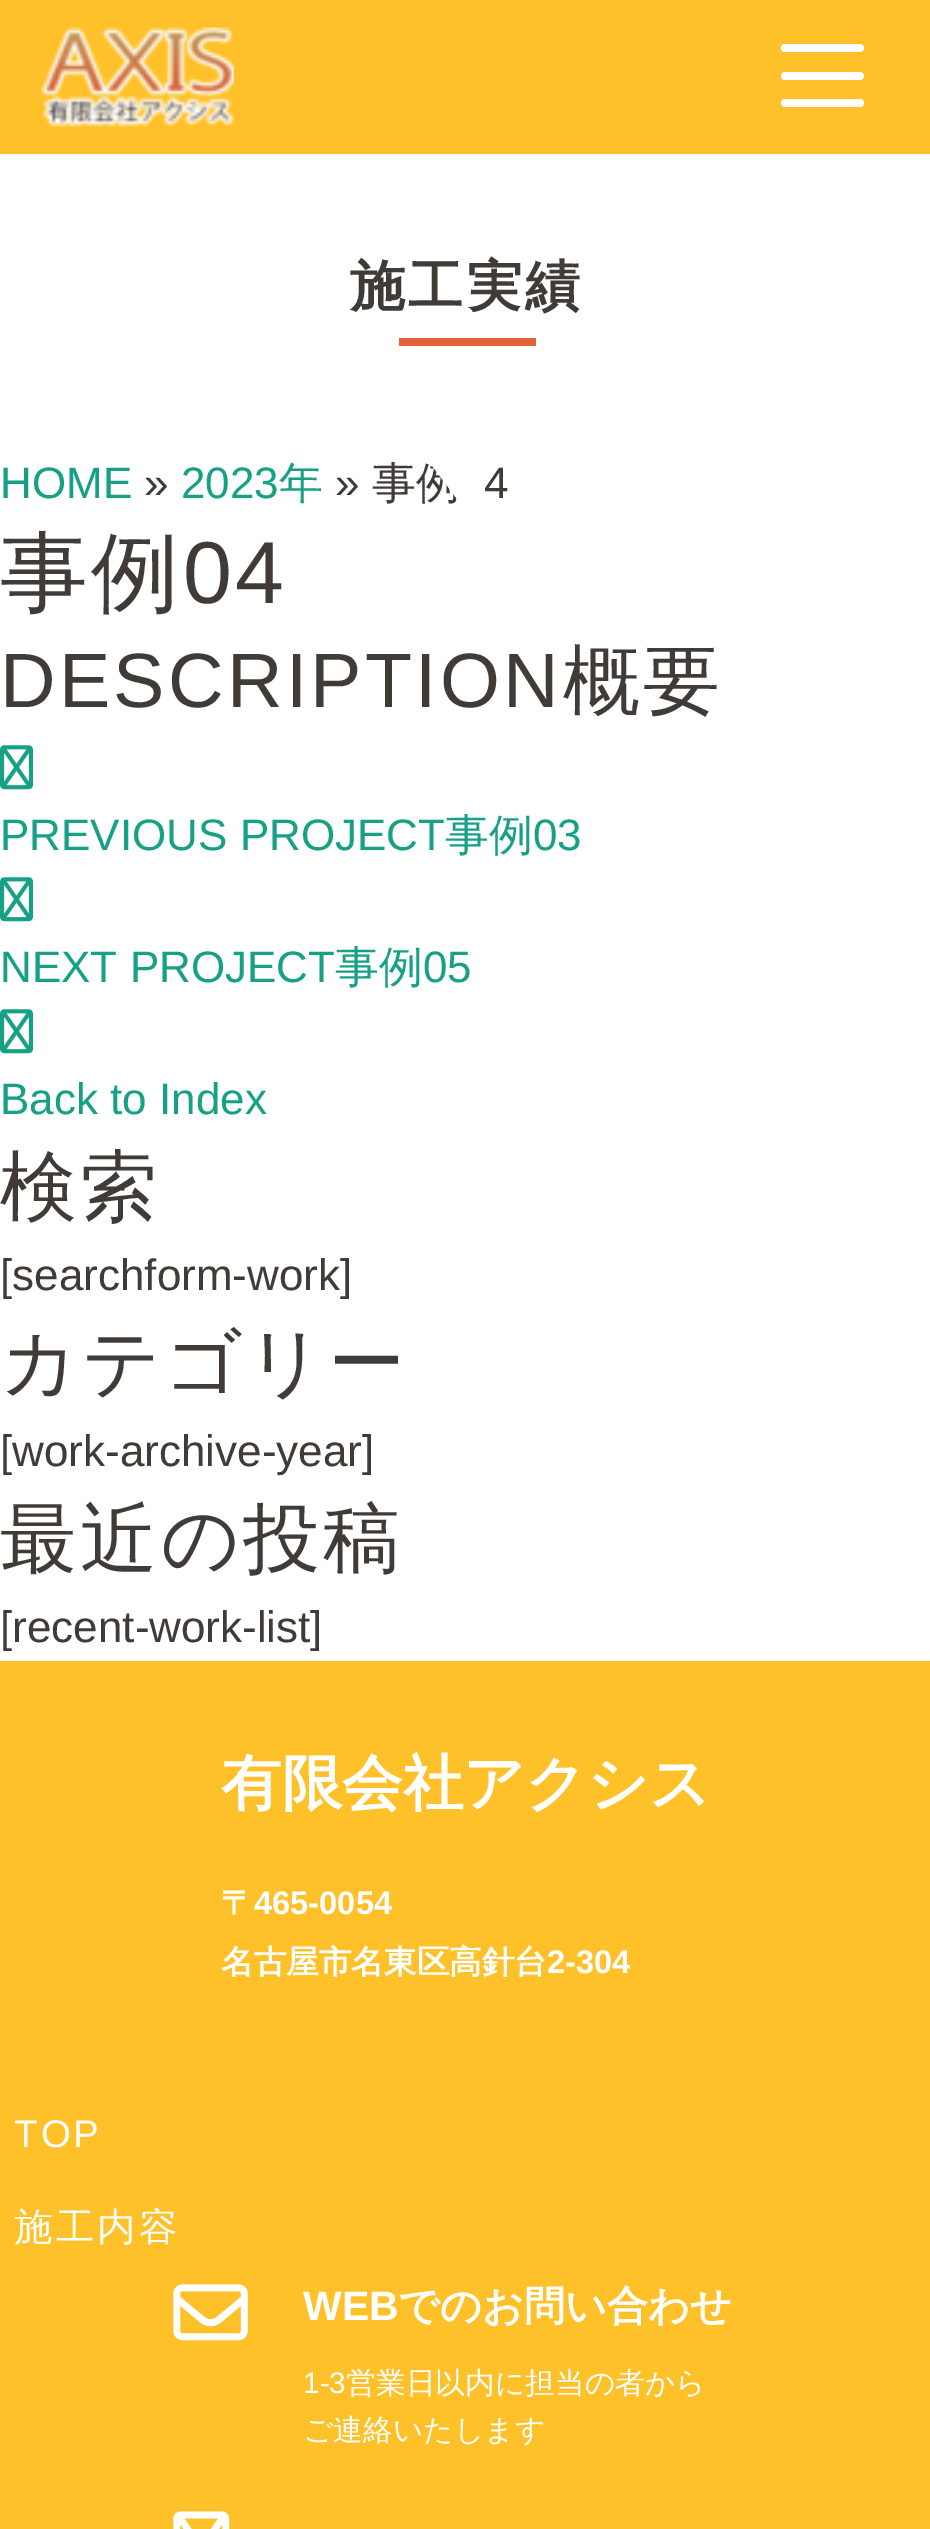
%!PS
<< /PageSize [930 2529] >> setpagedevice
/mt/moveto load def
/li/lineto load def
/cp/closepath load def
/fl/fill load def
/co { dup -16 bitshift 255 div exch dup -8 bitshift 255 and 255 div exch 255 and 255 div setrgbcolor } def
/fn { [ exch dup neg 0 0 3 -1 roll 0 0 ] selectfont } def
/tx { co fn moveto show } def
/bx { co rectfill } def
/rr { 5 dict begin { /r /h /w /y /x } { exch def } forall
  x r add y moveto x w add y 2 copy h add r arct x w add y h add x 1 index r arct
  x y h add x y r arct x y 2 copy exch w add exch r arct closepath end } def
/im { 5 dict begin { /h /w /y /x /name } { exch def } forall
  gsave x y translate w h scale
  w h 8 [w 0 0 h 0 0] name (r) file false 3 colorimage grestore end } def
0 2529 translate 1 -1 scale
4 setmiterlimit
0 0 930 2529 16#FFFFFF bx
0 0 930 154 16#FFC129 bx
(media/1.raw) 41 27 193 100 im
16#FFFFFF co
781 44 83 8 4 rr fl
781 72 83 8 4 rr fl
781 99 83 8 4 rr fl
399 338 137 8 16#E06437 bx
(media/2.raw) 0 745 33 45 im
(media/2.raw) 0 877 33 45 im
(media/2.raw) 0 1009 33 45 im
0 1661 930 868 16#FFC129 bx
(media/3.raw) 173 2284 75 57 im
(media/4.raw) 173 2511 57 18 im
/WenQuanYiZenHei-Bold 55 fn
16#413B38 co
350 305 mt 3.25 0 (施工実績) ashow
(HOME) 0 498 /LiberationSans-Regular 44 16#16A085 tx
(») 144 498 /LiberationSans-Regular 44 16#413B38 tx
(2023) 181 498 /LiberationSans-Regular 44 16#16A085 tx
(年) 279 498 /WenQuanYiZenHei-Medium 44 16#16A085 tx
(») 335 498 /LiberationSans-Regular 44 16#413B38 tx
(事例) 372 498 /WenQuanYiZenHei-Medium 44 16#413B38 tx
(4) 484 498 /LiberationSans-Regular 44 16#413B38 tx
16#FFFFFF co
511 451 mt 421 451 li 466 511 li cp fl
/WenQuanYiZenHei-Medium 88 fn
16#413B38 co
0 603 mt 3.25 0 (事例) ashow
/LiberationSans-Regular 88 fn
183 603 mt 3.25 0 (04) ashow
/LiberationSans-Regular 77 fn
0 707 mt 3.25 0 (DESCRIPTION) ashow
/WenQuanYiZenHei-Medium 77 fn
563 707 mt 3.25 0 (概要) ashow
(PREVIOUS PROJECT) 0 850 /LiberationSans-Regular 44 16#16A085 tx
(事例) 445 850 /WenQuanYiZenHei-Medium 44 16#16A085 tx
(03) 533 850 /LiberationSans-Regular 44 16#16A085 tx
(NEXT PROJECT) 0 982 /LiberationSans-Regular 44 16#16A085 tx
(事例) 335 982 /WenQuanYiZenHei-Medium 44 16#16A085 tx
(05) 423 982 /LiberationSans-Regular 44 16#16A085 tx
(Back to Index) 0 1114 /LiberationSans-Regular 44 16#16A085 tx
/WenQuanYiZenHei-Medium 77 fn
16#413B38 co
0 1213 mt 3.25 0 (検索) ashow
([searchform-work]) 0 1290 /LiberationSans-Regular 44 16#413B38 tx
/WenQuanYiZenHei-Medium 77 fn
0 1389 mt 3.25 0 (カテゴリー) ashow
([work-archive-year]) 0 1466 /LiberationSans-Regular 44 16#413B38 tx
/WenQuanYiZenHei-Medium 77 fn
0 1565 mt 3.25 0 (最近の投稿) ashow
([recent-work-list]) 0 1642 /LiberationSans-Regular 44 16#413B38 tx
(有限会社アクシス) 221 1804 /WenQuanYiZenHei-Bold 60.5 16#FFFFFF tx
(〒) 221 1914 /WenQuanYiZenHei-Bold 32.6 16#FFFFFF tx
(465-0054) 254 1914 /LiberationSans-Bold 32.6 16#FFFFFF tx
(名古屋市名東区高針台) 221 1973 /WenQuanYiZenHei-Bold 32.6 16#FFFFFF tx
(2-304) 547 1973 /LiberationSans-Bold 32.6 16#FFFFFF tx
/LiberationSans-Regular 38.5 fn
14 2147 mt 3 0 (TOP) ashow
/WenQuanYiZenHei-Medium 38.5 fn
14 2240 mt 3 0 (施工内容) ashow
(WEB) 303 2320 /LiberationSans-Bold 41 16#FFFFFF tx
(でのお問い合わせ) 398 2320 /WenQuanYiZenHei-Bold 41 16#FFFFFF tx
(1-3) 303 2393 /LiberationSans-Regular 29.75 16#FFFFFF tx
(営業日以内に担当の者から) 346 2393 /WenQuanYiZenHei-Medium 29.75 16#FFFFFF tx
(ご連絡いたします) 303 2440 /WenQuanYiZenHei-Medium 29.75 16#FFFFFF tx
showpage
